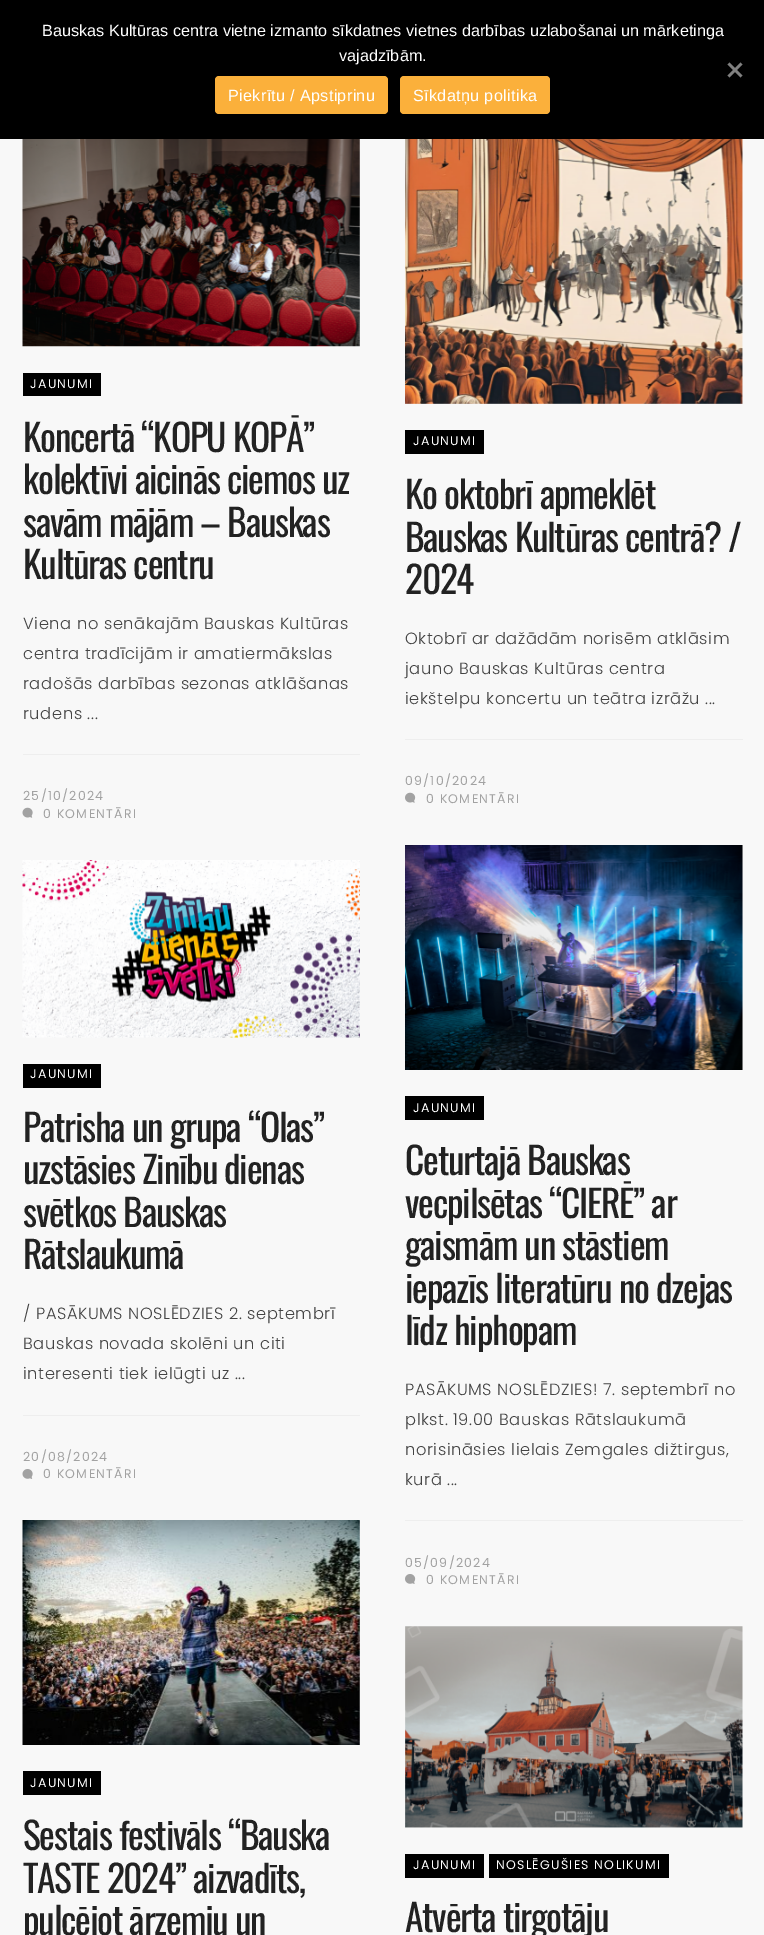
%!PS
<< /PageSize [764 1935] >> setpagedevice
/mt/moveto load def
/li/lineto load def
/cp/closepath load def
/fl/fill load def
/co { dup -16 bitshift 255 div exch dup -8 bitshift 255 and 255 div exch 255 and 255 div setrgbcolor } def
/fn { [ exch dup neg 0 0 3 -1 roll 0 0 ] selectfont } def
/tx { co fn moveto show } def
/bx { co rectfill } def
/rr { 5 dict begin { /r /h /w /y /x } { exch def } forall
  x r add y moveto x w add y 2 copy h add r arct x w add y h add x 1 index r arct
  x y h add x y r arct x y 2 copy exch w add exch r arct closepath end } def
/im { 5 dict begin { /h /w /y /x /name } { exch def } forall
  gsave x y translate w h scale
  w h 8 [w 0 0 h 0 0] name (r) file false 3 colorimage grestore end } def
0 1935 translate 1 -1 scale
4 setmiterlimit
0 0 764 1935 16#F8F8F8 bx
0 0 764 139 16#000000 bx
16#808080 co
740.5 62.5 mt 742.5 64.5 li 729.5 77.5 li 727.5 75.5 li cp fl
727.5 64.5 mt 729.5 62.5 li 742.5 75.5 li 740.5 77.5 li cp fl
16#FBB03B co
215 76 173 38 4 rr fl
400 76 150 38 4 rr fl
(media/1.raw) 22 139 338 208 im
23 373 78 23 16#000000 bx
23 754 337 1 16#EEEEEE bx
(media/2.raw) 22 807 11 11 im
(media/3.raw) 405 139 338 265 im
405 430 79 24 16#000000 bx
405 739 338 1 16#EEEEEE bx
(media/4.raw) 405 792 11 11 im
(media/5.raw) 22 860 338 178 im
23 1064 78 24 16#000000 bx
23 1415 337 1 16#EEEEEE bx
(media/6.raw) 22 1469 11 10 im
(media/7.raw) 405 845 338 225 im
405 1096 79 24 16#000000 bx
405 1520 338 1 16#EEEEEE bx
(media/8.raw) 405 1574 11 10 im
(media/9.raw) 22 1520 338 225 im
23 1771 78 24 16#000000 bx
(media/10.raw) 405 1626 338 202 im
405 1854 79 24 16#000000 bx
489 1854 180 24 16#000000 bx
(Bauskas Kultūras centra vietne izmanto sīkdatnes vietnes darbības uzlabošanai un mārketinga) 42 36 /LiberationSans-Regular 16.25 16#FFFFFF tx
(vajadzībām.) 339 61 /LiberationSans-Regular 16.25 16#FFFFFF tx
228 101 mt .3 0 (Piekrītu / Apstiprinu) ashow
413 101 mt .3 0 (Sīkdatņu politika) ashow
/Poppins-Regular 12.5 fn
30 388 mt 1.25 0 (JAUNUMI) ashow
/Oswald-Regular 37.5 fn
16#222222 co
23 452 mt -1.25 0 (Koncertā “KOPU KOPĀ”) ashow
23 494 mt -1.25 0 (kolektīvi aicinās ciemos uz) ashow
23 537 mt -1.25 0 (savām mājām – Bauskas) ashow
23 579 mt -1.25 0 (Kultūras centru) ashow
/Poppins-Light 16.25 fn
16#444444 co
23 629 mt .6 0 (Viena no senākajām Bauskas Kultūras) ashow
23 659 mt .6 0 (centra tradīcijām ir amatiermākslas) ashow
23 689 mt .6 0 (radošās darbības sezonas atklāšanas) ashow
23 719 mt .6 0 (rudens ...) ashow
/Poppins-Regular 12.5 fn
16#A2A2A2 co
23 800 mt 1.25 0 (25/10/2024) ashow
43 818 mt 1.25 0 (0 KOMENTĀRI) ashow
16#FFFFFF co
413 445 mt 1.25 0 (JAUNUMI) ashow
/Oswald-Regular 37.5 fn
16#222222 co
405 509 mt -1.25 0 (Ko oktobrī apmeklēt) ashow
405 552 mt -1.25 0 (Bauskas Kultūras centrā? /) ashow
405 594 mt -1.25 0 (2024) ashow
/Poppins-Light 16.25 fn
16#444444 co
405 644 mt .6 0 (Oktobrī ar dažādām norisēm atklāsim) ashow
405 674 mt .6 0 (jauno Bauskas Kultūras centra) ashow
405 704 mt .6 0 (iekštelpu koncertu un teātra izrāžu ...) ashow
/Poppins-Regular 12.5 fn
16#A2A2A2 co
405 785 mt 1.25 0 (09/10/2024) ashow
426 803 mt 1.25 0 (0 KOMENTĀRI) ashow
16#FFFFFF co
30 1078 mt 1.25 0 (JAUNUMI) ashow
/Oswald-Regular 37.5 fn
16#222222 co
23 1142 mt -1.25 0 (Patrisha un grupa “Olas”) ashow
23 1184 mt -1.25 0 (uzstāsies Zinību dienas) ashow
23 1227 mt -1.25 0 (svētkos Bauskas) ashow
23 1269 mt -1.25 0 (Rātslaukumā) ashow
/Poppins-Light 16.25 fn
16#444444 co
23 1319 mt .6 0 (/ PASĀKUMS NOSLĒDZIES 2. septembrī) ashow
23 1349 mt .6 0 (Bauskas novada skolēni un citi) ashow
23 1379 mt .6 0 (interesenti tiek ielūgti uz ...) ashow
/Poppins-Regular 12.5 fn
16#A2A2A2 co
23 1461 mt 1.25 0 (20/08/2024) ashow
43 1478 mt 1.25 0 (0 KOMENTĀRI) ashow
16#FFFFFF co
413 1112 mt 1.25 0 (JAUNUMI) ashow
/Oswald-Regular 37.5 fn
16#222222 co
405 1175 mt -1.25 0 (Ceturtajā Bauskas) ashow
405 1218 mt -1.25 0 (vecpilsētas “CIERĒ” ar) ashow
405 1260 mt -1.25 0 (gaismām un stāstiem) ashow
405 1303 mt -1.25 0 (iepazīs literatūru no dzejas) ashow
405 1345 mt -1.25 0 (līdz hiphopam) ashow
/Poppins-Light 16.25 fn
16#444444 co
405 1395 mt .6 0 (PASĀKUMS NOSLĒDZIES! 7. septembrī no) ashow
405 1425 mt .6 0 (plkst. 19.00 Bauskas Rātslaukumā) ashow
405 1455 mt .6 0 (norisināsies lielais Zemgales dižtirgus,) ashow
405 1485 mt .6 0 (kurā ...) ashow
/Poppins-Regular 12.5 fn
16#A2A2A2 co
405 1567 mt 1.25 0 (05/09/2024) ashow
426 1584 mt 1.25 0 (0 KOMENTĀRI) ashow
16#FFFFFF co
30 1787 mt 1.25 0 (JAUNUMI) ashow
/Oswald-Regular 37.5 fn
16#222222 co
23 1850 mt -1.25 0 (Sestais festivāls “Bauska) ashow
23 1893 mt -1.25 0 (TASTE 2024” aizvadīts,) ashow
23 1935 mt -1.25 0 (pulcējot ārzemju un) ashow
/Poppins-Regular 12.5 fn
16#FFFFFF co
413 1869 mt 1.25 0 (JAUNUMI) ashow
496 1869 mt 1.25 0 (NOSLĒGUŠIES NOLIKUMI) ashow
/Oswald-Regular 37.5 fn
16#222222 co
405 1932 mt -1.25 0 (Atvērta tirgotāju) ashow
showpage
